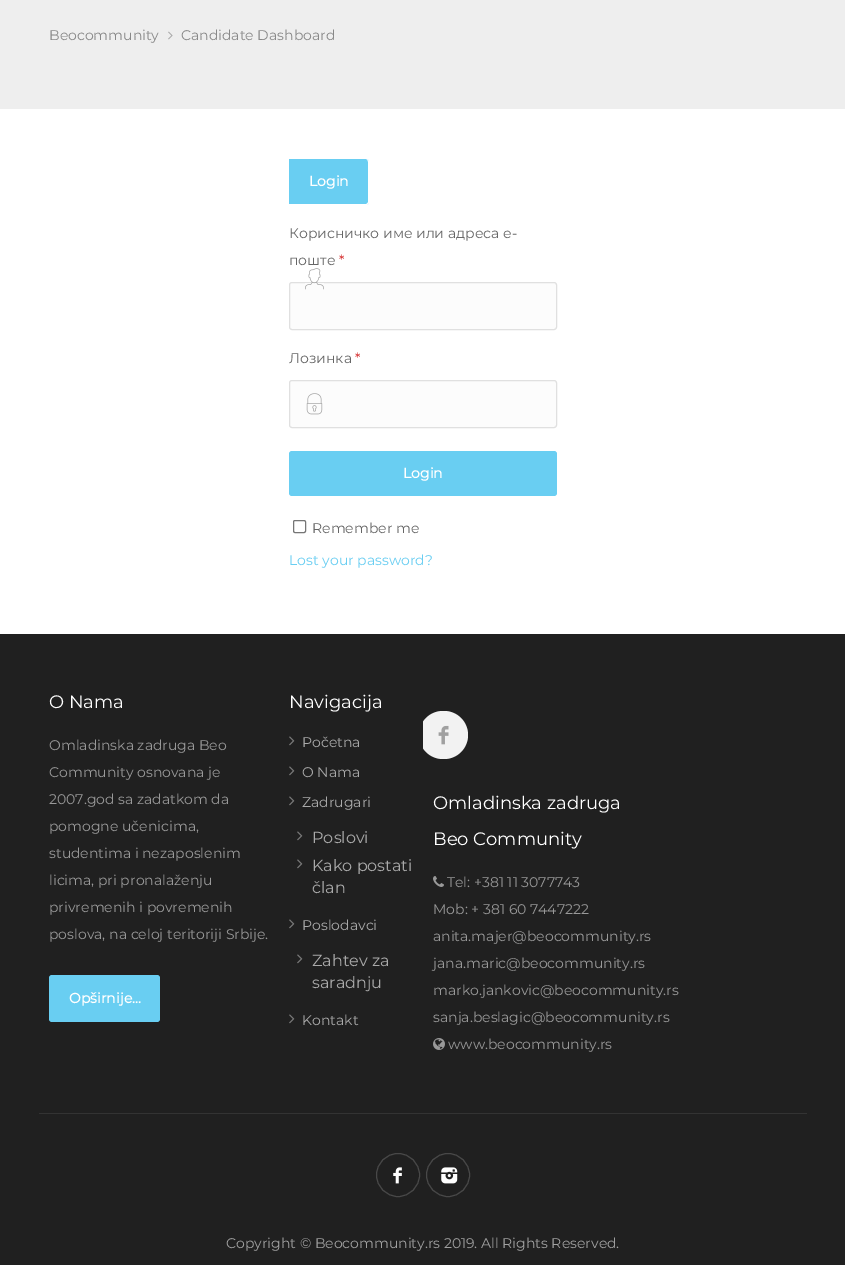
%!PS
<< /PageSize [845 1265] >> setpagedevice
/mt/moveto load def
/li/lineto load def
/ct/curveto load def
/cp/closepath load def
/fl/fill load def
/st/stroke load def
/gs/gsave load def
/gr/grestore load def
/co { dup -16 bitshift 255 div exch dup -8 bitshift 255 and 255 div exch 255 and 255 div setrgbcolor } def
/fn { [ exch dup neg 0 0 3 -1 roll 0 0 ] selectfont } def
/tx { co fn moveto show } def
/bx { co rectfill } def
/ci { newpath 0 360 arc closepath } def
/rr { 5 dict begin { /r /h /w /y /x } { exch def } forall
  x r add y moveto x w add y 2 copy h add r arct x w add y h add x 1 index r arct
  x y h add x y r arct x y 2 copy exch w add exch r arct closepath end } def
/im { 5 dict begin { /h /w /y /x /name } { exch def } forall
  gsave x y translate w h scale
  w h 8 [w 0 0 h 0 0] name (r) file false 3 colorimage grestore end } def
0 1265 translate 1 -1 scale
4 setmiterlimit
0 0 845 1265 16#FFFFFF bx
0 0 845 109 16#EEEEEE bx
(media/1.raw) 168 31 5 9 im
16#69CEF2 co
289 159 mt 366 159 li 367.5 159 369 160.5 369 162 ct 369 202 li 369 203.5 367.5 205 366 205 ct 289 205 li cp fl
16#FFFFFF co
289 159 mt 366 159 li 368 159 369 160 369 162 ct 369 202 li 369 204 368 205 366 205 ct 289 205 li cp 289 159 mt 366 159 li 367 159 368 160 368 162 ct 368 202 li 368 203 367 204 366 204 ct 289 204 li cp eofill
16#FCFCFC co
289.5 282.5 267 47 2.5 rr gs fl gr
16#E0E0E0 co
st
(media/2.raw) 305 268 19 22 im
16#FCFCFC co
289.5 380.5 267 47 2.5 rr gs fl gr
16#E0E0E0 co
st
(media/3.raw) 306 393 17 22 im
16#69CEF2 co
289 451 268 45 3 rr fl
16#767676 co
293.5 520.5 12 12 1.5 rr st
0 634 845 631 16#202020 bx
16#69CEF2 co
49 975 111 47 3 rr fl
(media/4.raw) 289 736 6 10 im
(media/4.raw) 289 766 6 10 im
(media/4.raw) 289 796 6 10 im
(media/4.raw) 297 831 6 10 im
(media/4.raw) 297 859 6 10 im
(media/4.raw) 289 919 6 10 im
(media/4.raw) 297 954 6 10 im
(media/4.raw) 289 1014 6 10 im
gs
423 704 230 61 rectclip
16#F2F2F2 co
419 711 49 48 24 rr fl
gr
(media/5.raw) 438 725 11 20 im
(media/6.raw) 433 876 11 11 im
(media/7.raw) 433 1038 12 12 im
39 1113 768 1 16#333333 bx
16#484848 co
398 1175 21.5 ci st
(media/8.raw) 393 1167 9 17 im
448 1175 21.5 ci st
(media/9.raw) 441 1167 17 17 im
(Beocommunity) 49 40 /Montserrat-Thin 14 16#888888 tx
(Candidate Dashboard) 181 40 /Montserrat-Thin 14 16#888888 tx
(Login) 309 186 /Montserrat-Bold 14 16#FFFFFF tx
(Корисничко име или адреса е-) 289 238 /Montserrat-Thin 14 16#666666 tx
(поште) 289 265 /Montserrat-Thin 14 16#666666 tx
(*) 339 265 /Montserrat-Thin 14 16#D11C1C tx
(Лозинка) 289 363 /Montserrat-Thin 14 16#666666 tx
(*) 355 363 /Montserrat-Thin 14 16#D11C1C tx
(Login) 403 478 /Montserrat-Bold 14 16#FFFFFF tx
(Remember me) 312 533 /Montserrat-Thin 14 16#666666 tx
(Lost your password?) 289 565 /Montserrat-Thin 14 16#69CEF2 tx
(O Nama) 49 708 /Montserrat-Thin 18 16#FFFFFF tx
(Omladinska zadruga Beo) 49 750 /Montserrat-Thin 14 16#999999 tx
(Community osnovana je) 49 777 /Montserrat-Thin 14 16#999999 tx
(2007.god sa zadatkom da) 49 804 /Montserrat-Thin 14 16#999999 tx
(pomogne učenicima,) 49 831 /Montserrat-Thin 14 16#999999 tx
(studentima i nezaposlenim) 49 858 /Montserrat-Thin 14 16#999999 tx
(licima, pri pronalaženju) 49 885 /Montserrat-Thin 14 16#999999 tx
(privremenih i povremenih) 49 912 /Montserrat-Thin 14 16#999999 tx
(poslova, na celoj teritoriji Srbije.) 49 939 /Montserrat-Thin 14 16#999999 tx
(Opširnije...) 69 1003 /Montserrat-Bold 14 16#FFFFFF tx
(Navigacija) 289 708 /Montserrat-Thin 18 16#FFFFFF tx
(Početna) 302 747 /Montserrat-Thin 14 16#AAAAAA tx
(O Nama) 302 777 /Montserrat-Thin 14 16#AAAAAA tx
(Zadrugari) 302 807 /Montserrat-Thin 14 16#AAAAAA tx
(Poslovi) 312 843 /Montserrat-Thin 16 16#AAAAAA tx
(Kako postati) 312 871 /Montserrat-Thin 16 16#AAAAAA tx
(član) 312 893 /Montserrat-Thin 16 16#AAAAAA tx
(Poslodavci) 302 930 /Montserrat-Thin 14 16#AAAAAA tx
(Zahtev za) 312 966 /Montserrat-Thin 16 16#AAAAAA tx
(saradnju) 312 988 /Montserrat-Thin 16 16#AAAAAA tx
(Kontakt) 302 1025 /Montserrat-Thin 14 16#AAAAAA tx
(Omladinska zadruga) 433 809 /Montserrat-Thin 18 16#FFFFFF tx
(Beo Community) 433 845 /Montserrat-Thin 18 16#FFFFFF tx
(Tel: +381 11 3077743) 447 887 /Montserrat-Thin 14 16#999999 tx
(Mob: + 381 60 7447222) 433 914 /Montserrat-Thin 14 16#999999 tx
(anita.majer@beocommunity.rs) 433 941 /Montserrat-Thin 14 16#999999 tx
(jana.maric@beocommunity.rs) 433 968 /Montserrat-Thin 14 16#999999 tx
(marko.jankovic@beocommunity.rs) 433 995 /Montserrat-Thin 14 16#999999 tx
(sanja.beslagic@beocommunity.rs) 433 1022 /Montserrat-Thin 14 16#999999 tx
(www.beocommunity.rs) 448 1049 /Montserrat-Thin 14 16#999999 tx
(Copyright © Beocommunity.rs 2019. All Rights Reserved.) 226 1248 /Montserrat-Thin 14 16#A0A0A0 tx
showpage
